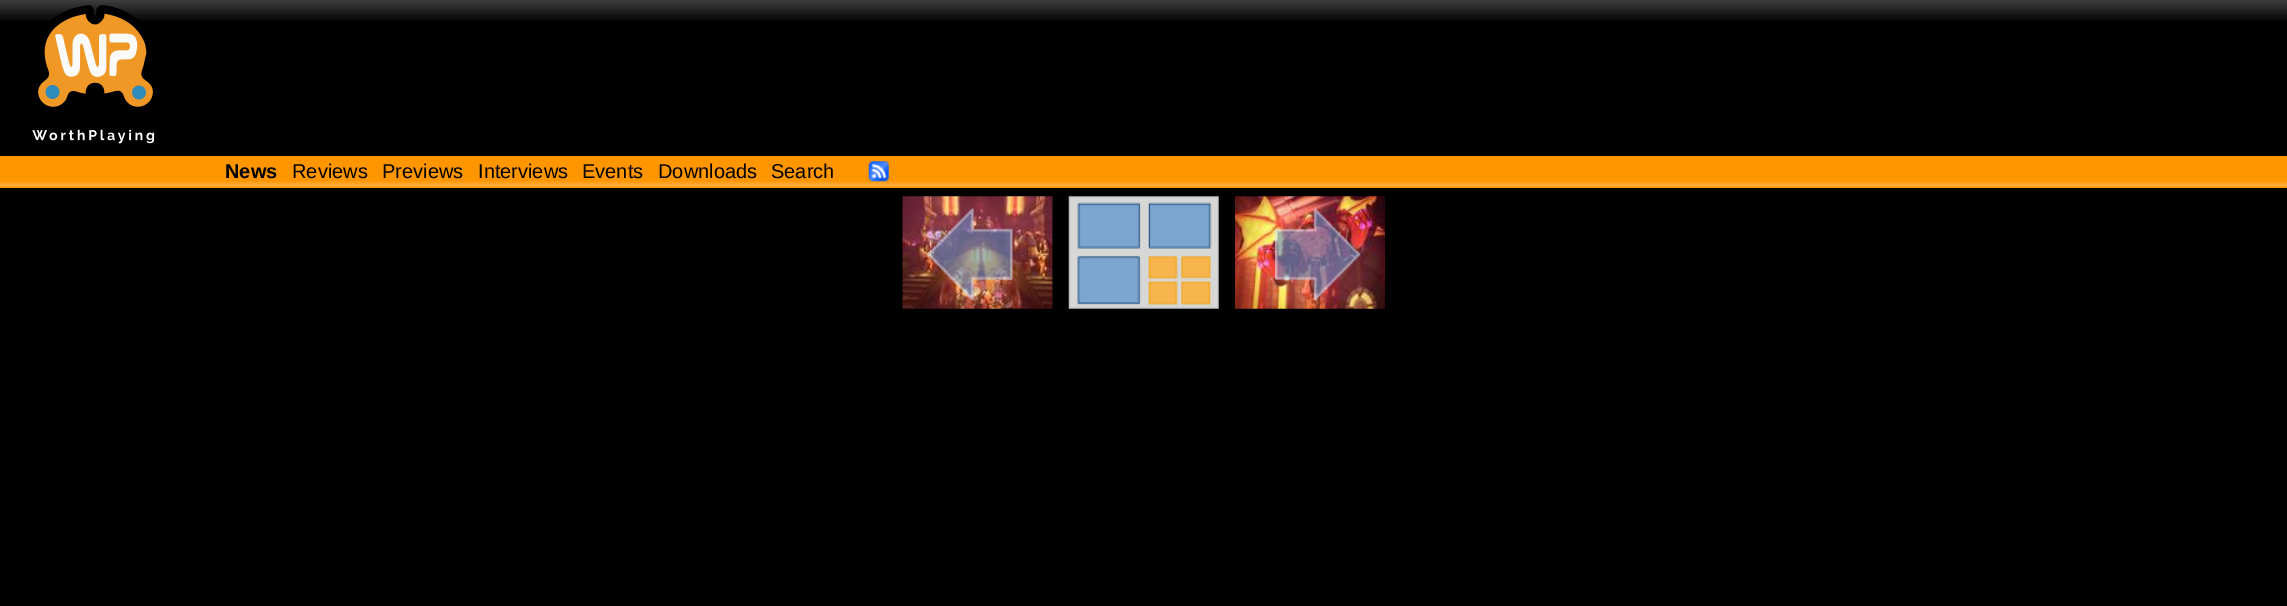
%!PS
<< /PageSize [2287 606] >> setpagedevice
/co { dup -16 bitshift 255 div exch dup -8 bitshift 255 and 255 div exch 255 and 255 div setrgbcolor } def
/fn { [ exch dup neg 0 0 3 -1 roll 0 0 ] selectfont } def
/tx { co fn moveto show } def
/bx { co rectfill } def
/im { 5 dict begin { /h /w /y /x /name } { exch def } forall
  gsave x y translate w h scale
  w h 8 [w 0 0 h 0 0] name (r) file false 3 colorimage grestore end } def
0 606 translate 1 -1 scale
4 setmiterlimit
0 0 2287 606 16#000000 bx
(media/1.raw) 0 0 2287 21 im
(media/2.raw) 32 5 123 139 im
0 156 2287 32 16#FF9600 bx
(media/3.raw) 0 181 2287 6 im
(media/4.raw) 868 161 21 21 im
(media/5.raw) 902 196 151 113 im
(media/6.raw) 927 208 86 92 im
(media/7.raw) 1068 196 151 113 im
(media/8.raw) 1235 196 150 113 im
(media/9.raw) 1275 208 85 92 im
(News) 225 178 /LiberationSans-Bold 20 16#000000 tx
(Reviews) 292 178 /LiberationSans-Regular 20 16#000000 tx
(Previews) 382 178 /LiberationSans-Regular 20 16#000000 tx
(Interviews) 478 178 /LiberationSans-Regular 20 16#000000 tx
(Events) 582 178 /LiberationSans-Regular 20 16#000000 tx
(Downloads) 658 178 /LiberationSans-Regular 20 16#000000 tx
(Search) 771 178 /LiberationSans-Regular 20 16#000000 tx
showpage
